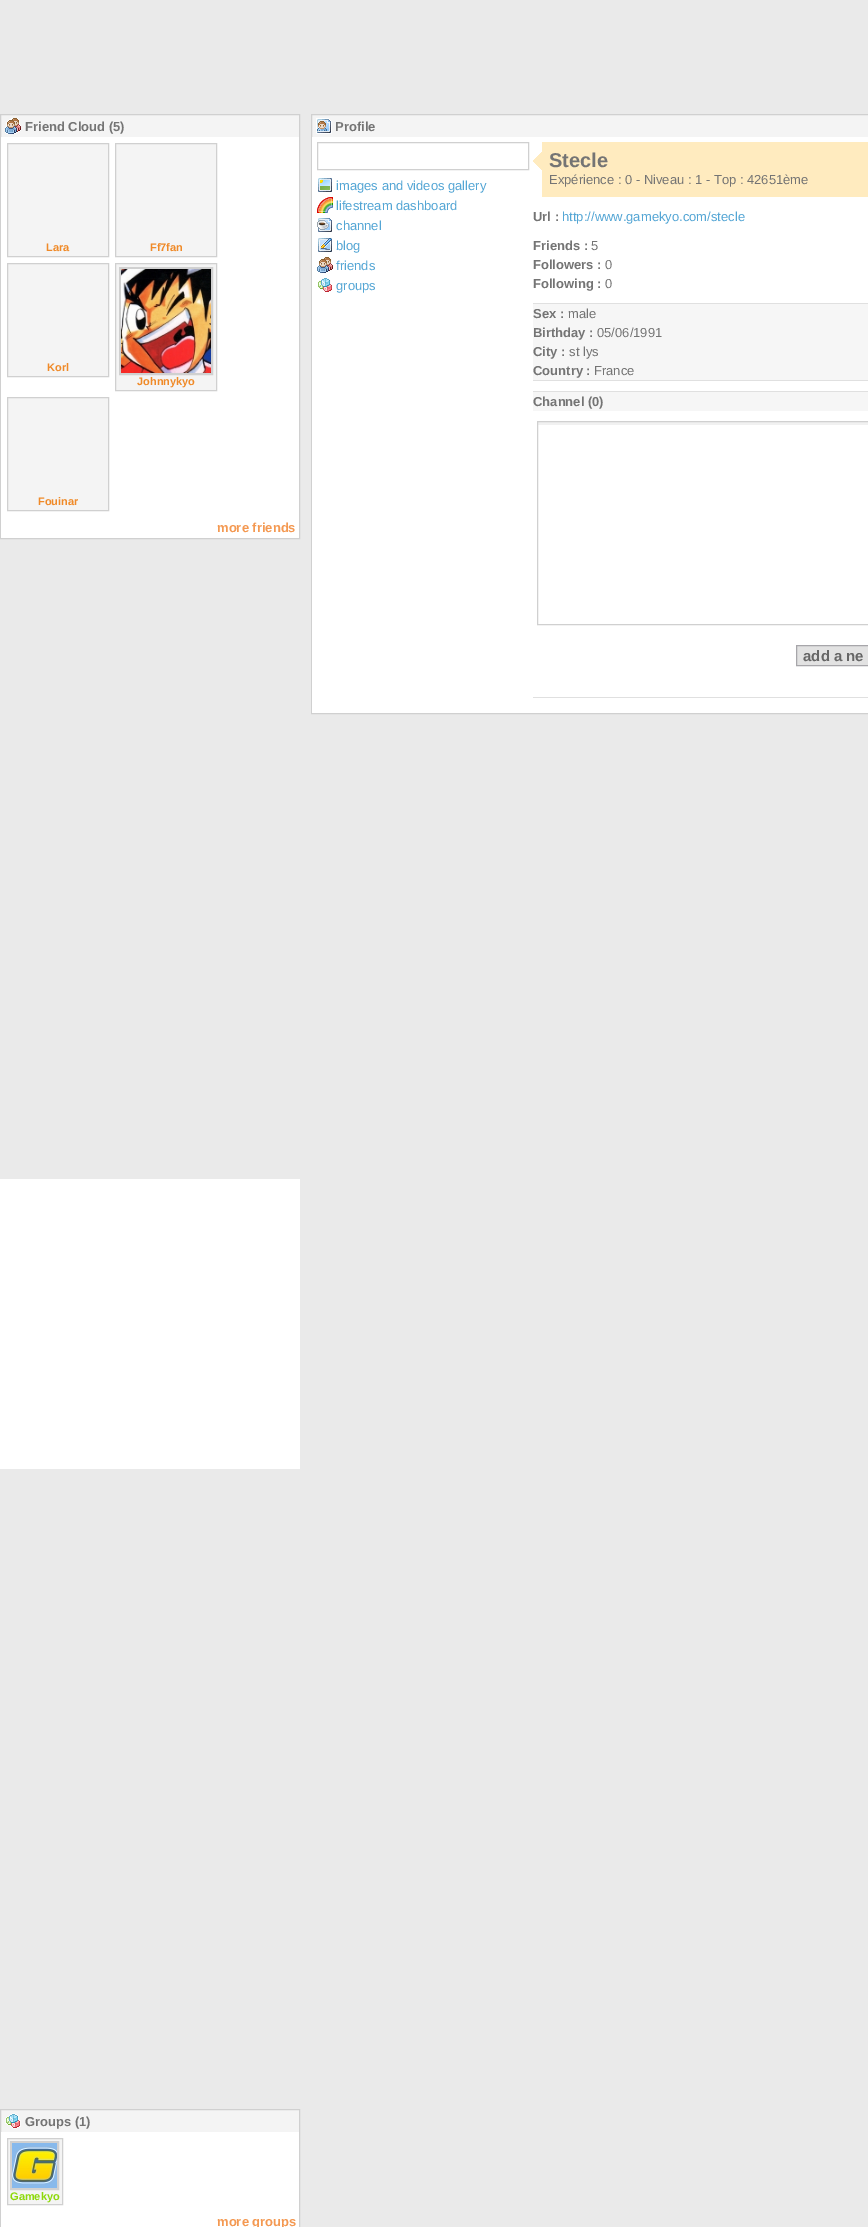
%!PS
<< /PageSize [868 2227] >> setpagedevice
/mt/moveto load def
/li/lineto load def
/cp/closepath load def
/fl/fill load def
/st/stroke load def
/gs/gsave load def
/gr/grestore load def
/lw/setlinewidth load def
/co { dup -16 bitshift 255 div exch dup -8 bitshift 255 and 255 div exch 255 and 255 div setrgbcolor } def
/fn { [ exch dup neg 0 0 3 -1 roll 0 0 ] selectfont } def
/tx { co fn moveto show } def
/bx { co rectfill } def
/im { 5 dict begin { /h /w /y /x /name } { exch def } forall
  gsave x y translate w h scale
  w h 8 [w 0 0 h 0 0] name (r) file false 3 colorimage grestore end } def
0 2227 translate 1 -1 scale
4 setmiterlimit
0 0 868 2227 16#EAEAEA bx
1 115 298 22 16#F4F4F4 bx
16#D0D0D0 co
.5 114.5 299 424 rectstroke
(media/1.raw) 5 118 16 16 im
1 137 298 401 16#FFFFFF bx
16#F4F4F4 co
7.5 143.5 mt 108.5 143.5 li 108.5 256.5 li 7.5 256.5 li cp gs fl gr
16#D0D0D0 co
st
16#F4F4F4 co
115.5 143.5 mt 216.5 143.5 li 216.5 256.5 li 115.5 256.5 li cp gs fl gr
16#D0D0D0 co
st
16#F4F4F4 co
7.5 263.5 mt 108.5 263.5 li 108.5 376.5 li 7.5 376.5 li cp gs fl gr
16#D0D0D0 co
st
16#F4F4F4 co
115.5 263.5 mt 216.5 263.5 li 216.5 390.5 li 115.5 390.5 li cp gs fl gr
16#D0D0D0 co
st
2 lw
120 268 92 106 rectstroke
(media/2.raw) 121 269 90 104 im
16#F4F4F4 co
7.5 397.5 mt 108.5 397.5 li 108.5 510.5 li 7.5 510.5 li cp gs fl gr
16#D0D0D0 co
1 lw
st
0 1179 300 290 16#FFFFFF bx
1 2110 298 22 16#F4F4F4 bx
16#D0D0D0 co
.5 2109.5 299 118 rectstroke
(media/3.raw) 5 2113 16 16 im
1 2132 298 95 16#FFFFFF bx
16#F4F4F4 co
7.5 2138.5 mt 62.5 2138.5 li 62.5 2204.5 li 7.5 2204.5 li cp gs fl gr
16#D0D0D0 co
st
2 lw
11 2142 47 47 rectstroke
(media/4.raw) 12 2143 45 45 im
312 115 556 22 16#F4F4F4 bx
16#D0D0D0 co
1 lw
311.5 114.5 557 599 rectstroke
(media/5.raw) 316 118 16 16 im
312 137 556 576 16#FFFFFF bx
16#D0D0D0 co
317.5 142.5 211 27 rectstroke
(media/6.raw) 318 178 14 14 im
(media/7.raw) 317 197 16 16 im
(media/8.raw) 317 218 15 14 im
(media/9.raw) 318 238 14 14 im
(media/10.raw) 317 257 16 16 im
(media/11.raw) 318 278 14 14 im
(media/12.raw) 533 152 9 18 im
542 142 326 55 16#FFEBBF bx
533 304 335 76 16#F6F6F6 bx
533 303 335 1 16#E0E0E0 bx
533 380 335 1 16#E0E0E0 bx
533 392 335 19 16#F6F6F6 bx
533 391 335 1 16#E0E0E0 bx
533 697 335 1 16#E0E0E0 bx
537 422 331 3 16#F1F1F1 bx
16#D0D0D0 co
537.5 421.5 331 203 rectstroke
16#E2E2E2 co
796.5 645.5 mt 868.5 645.5 li 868.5 665.5 li 796.5 665.5 li cp gs fl gr
16#A7A6AA co
st
(Friend Cloud \(5\)) 25 131 /LiberationSans-Bold 13 16#747474 tx
(Lara) 46 251 /LiberationSans-Bold 11 16#F08A28 tx
(Ff7fan) 150 251 /LiberationSans-Bold 11 16#F08A28 tx
(Korl) 47 371 /LiberationSans-Bold 11 16#F08A28 tx
(Johnnykyo) 137 385 /LiberationSans-Bold 11 16#F08A28 tx
(Fouinar) 38 505 /LiberationSans-Bold 11 16#F08A28 tx
(more friends) 217 532 /LiberationSans-Bold 13 16#F49952 tx
(Groups \(1\)) 25 2126 /LiberationSans-Bold 13 16#747474 tx
(Gamekyo) 10 2200 /LiberationSans-Bold 11 16#8DD909 tx
(more groups) 217 2226 /LiberationSans-Bold 13 16#F49952 tx
(Profile) 335 131 /LiberationSans-Bold 13 16#747474 tx
(images and videos gallery) 336 190 /LiberationSans-Regular 13 16#54A6D5 tx
(lifestream dashboard) 336 210 /LiberationSans-Regular 13 16#54A6D5 tx
(channel) 336 230 /LiberationSans-Regular 13 16#54A6D5 tx
(blog) 336 250 /LiberationSans-Regular 13 16#54A6D5 tx
(friends) 336 270 /LiberationSans-Regular 13 16#54A6D5 tx
(groups) 336 290 /LiberationSans-Regular 13 16#54A6D5 tx
(Stecle) 549 167 /LiberationSans-Bold 20 16#747474 tx
(Expérience : 0 - Niveau : 1 - Top : 42651ème) 549 184 /LiberationSans-Regular 13 16#747474 tx
(Url :) 533 221 /LiberationSans-Bold 13 16#747474 tx
(http://www.gamekyo.com/stecle) 562 221 /LiberationSans-Regular 13 16#54A6D5 tx
(Friends :) 533 250 /LiberationSans-Bold 13 16#747474 tx
(5) 591 250 /LiberationSans-Regular 13 16#747474 tx
(Followers :) 533 269 /LiberationSans-Bold 13 16#747474 tx
(0) 605 269 /LiberationSans-Regular 13 16#747474 tx
(Following :) 533 288 /LiberationSans-Bold 13 16#747474 tx
(0) 605 288 /LiberationSans-Regular 13 16#747474 tx
(Sex :) 533 318 /LiberationSans-Bold 13 16#747474 tx
(male) 568 318 /LiberationSans-Regular 13 16#747474 tx
(Birthday :) 533 337 /LiberationSans-Bold 13 16#747474 tx
(05/06/1991) 597 337 /LiberationSans-Regular 13 16#747474 tx
(City :) 533 356 /LiberationSans-Bold 13 16#747474 tx
(st lys) 569 356 /LiberationSans-Regular 13 16#747474 tx
(Country :) 533 375 /LiberationSans-Bold 13 16#747474 tx
(France) 594 375 /LiberationSans-Regular 13 16#747474 tx
(Channel \(0\)) 533 406 /LiberationSans-Bold 13 16#747474 tx
(add a ne) 803 661 /LiberationSans-Bold 15 16#666666 tx
showpage
